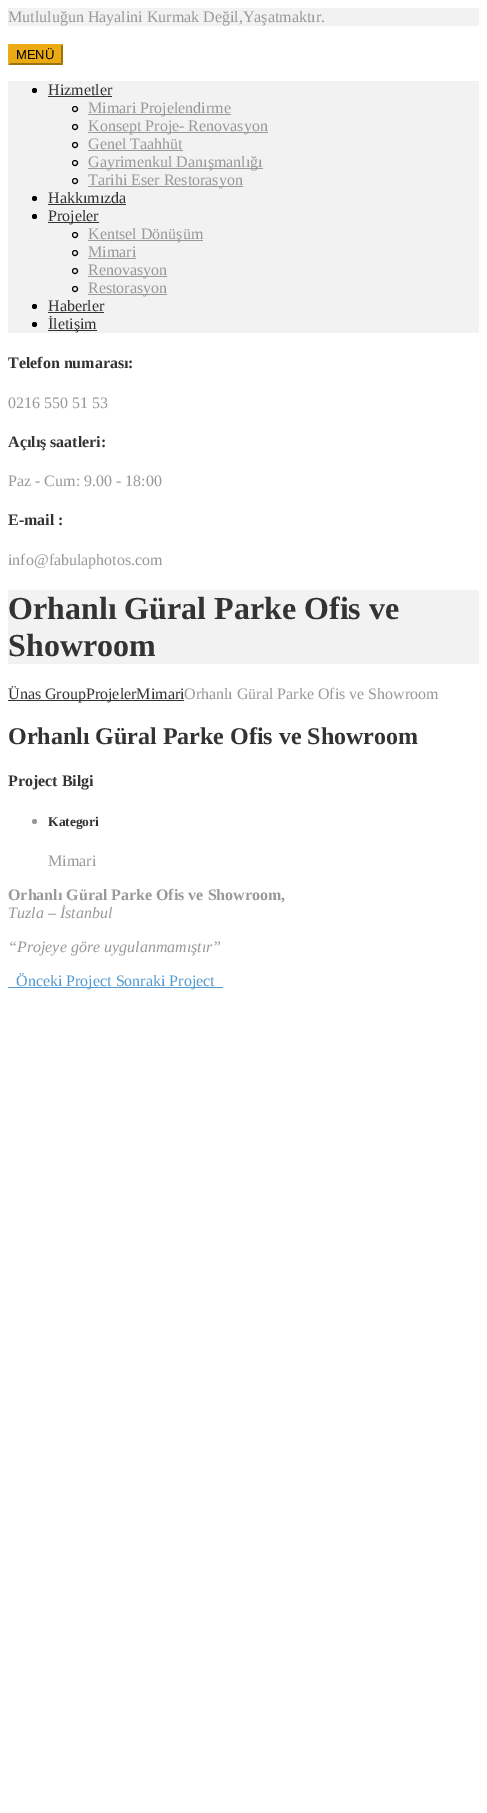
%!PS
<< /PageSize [487 1813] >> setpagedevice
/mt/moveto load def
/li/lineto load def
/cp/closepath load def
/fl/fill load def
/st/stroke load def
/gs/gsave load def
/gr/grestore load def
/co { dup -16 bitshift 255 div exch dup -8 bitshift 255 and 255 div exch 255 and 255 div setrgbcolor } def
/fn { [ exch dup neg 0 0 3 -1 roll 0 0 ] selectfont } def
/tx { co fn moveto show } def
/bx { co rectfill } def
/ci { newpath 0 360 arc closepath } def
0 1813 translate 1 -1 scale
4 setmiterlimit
0 0 487 1813 16#FFFFFF bx
8 8 471 18 16#F2F2F2 bx
gs 10 46 mt 61 46 li 61 63 li 10 63 li cp clip newpath
<< /ShadingType 2 /ColorSpace /DeviceRGB /Coords [36 46 36 63] /Extend [true true] /Function << /FunctionType 2 /Domain [0 1] /C0 [.929 .675 .082] /C1 [.922 .667 .071] /N 1 >> >> shfill gr
16#EDAC15 co
8 44 mt 63 44 li 61 46 li 10 46 li cp fl
16#9E730E co
63 44 mt 63 65 li 61 63 li 61 46 li cp fl
63 65 mt 8 65 li 10 63 li 61 63 li cp fl
16#EDAC15 co
8 65 mt 8 44 li 10 46 li 10 63 li cp fl
8 81 471 252 16#F2F2F2 bx
16#000000 co
34.5 90.5 2.5 ci fl
48 96 64 1 16#333333 bx
16#000000 co
75 109 2.5 ci st
88 114 143 1 16#999999 bx
16#000000 co
75 127 2.5 ci st
88 132 180 1 16#999999 bx
16#000000 co
75 145 2.5 ci st
88 150 95 1 16#999999 bx
16#000000 co
75 163 2.5 ci st
88 168 175 1 16#999999 bx
16#000000 co
75 181 2.5 ci st
88 186 155 1 16#999999 bx
16#000000 co
34.5 198.5 2.5 ci fl
48 204 78 1 16#333333 bx
16#000000 co
34.5 216.5 2.5 ci fl
48 222 51 1 16#333333 bx
16#000000 co
75 235 2.5 ci st
88 240 115 1 16#999999 bx
16#000000 co
75 253 2.5 ci st
88 258 48 1 16#999999 bx
16#000000 co
75 271 2.5 ci st
88 276 79 1 16#999999 bx
16#000000 co
75 289 2.5 ci st
88 294 79 1 16#999999 bx
16#000000 co
34.5 306.5 2.5 ci fl
48 312 56 1 16#333333 bx
16#000000 co
34.5 324.5 2.5 ci fl
48 330 49 1 16#333333 bx
8 590 471 74 16#F2F2F2 bx
8 700 128 1 16#333333 bx
136 700 48 1 16#333333 bx
16#999999 co
34.5 821.5 2.5 ci fl
8 987 215 1 16#539AD0 bx
(Mutluluğun Hayalini Kurmak Değil,Yaşatmaktır.) 8 22 /LiberationSerif-Regular 16 16#999999 tx
(MENÜ) 16 59 /LiberationSans-Regular 13 16#000000 tx
(Hizmetler) 48 95 /LiberationSerif-Regular 16 16#333333 tx
(Mimari Projelendirme) 88 113 /LiberationSerif-Regular 16 16#999999 tx
(Konsept Proje- Renovasyon) 88 131 /LiberationSerif-Regular 16 16#999999 tx
(Genel Taahhüt) 88 149 /LiberationSerif-Regular 16 16#999999 tx
(Gayrimenkul Danışmanlığı) 88 167 /LiberationSerif-Regular 16 16#999999 tx
(Tarihi Eser Restorasyon) 88 185 /LiberationSerif-Regular 16 16#999999 tx
(Hakkımızda) 48 203 /LiberationSerif-Regular 16 16#333333 tx
(Projeler) 48 221 /LiberationSerif-Regular 16 16#333333 tx
(Kentsel Dönüşüm) 88 239 /LiberationSerif-Regular 16 16#999999 tx
(Mimari) 88 257 /LiberationSerif-Regular 16 16#999999 tx
(Renovasyon) 88 275 /LiberationSerif-Regular 16 16#999999 tx
(Restorasyon) 88 293 /LiberationSerif-Regular 16 16#999999 tx
(Haberler) 48 311 /LiberationSerif-Regular 16 16#333333 tx
(İletişim) 48 329 /LiberationSerif-Regular 16 16#333333 tx
(Telefon numarası:) 8 368 /LiberationSerif-Bold 16 16#333333 tx
(0216 550 51 53) 8 408 /LiberationSerif-Regular 16 16#999999 tx
(Açılış saatleri:) 8 447 /LiberationSerif-Bold 16 16#333333 tx
(Paz - Cum: 9.00 - 18:00) 8 486 /LiberationSerif-Regular 16 16#999999 tx
(E-mail :) 8 525 /LiberationSerif-Bold 16 16#333333 tx
(info@fabulaphotos.com) 8 565 /LiberationSerif-Regular 16 16#999999 tx
(Orhanlı Güral Parke Ofis ve) 8 619 /LiberationSerif-Bold 32 16#333333 tx
(Showroom) 8 656 /LiberationSerif-Bold 32 16#333333 tx
(Ünas GroupProjelerMimari) 8 699 /LiberationSerif-Regular 16 16#333333 tx
(Orhanlı Güral Parke Ofis ve Showroom) 184 699 /LiberationSerif-Regular 16 16#999999 tx
(Orhanlı Güral Parke Ofis ve Showroom) 8 744 /LiberationSerif-Bold 24 16#333333 tx
(Project Bilgi) 8 786 /LiberationSerif-Bold 16 16#333333 tx
(Kategori) 48 826 /LiberationSerif-Bold 13.5 16#333333 tx
(Mimari) 48 866 /LiberationSerif-Regular 16 16#999999 tx
(Orhanlı Güral Parke Ofis ve Showroom,) 8 900 /LiberationSerif-Bold 16 16#999999 tx
(Tuzla – İstanbul) 8 918 /LiberationSerif-Italic 16 16#999999 tx
(“Projeye göre uygulanmamıştır”) 8 952 /LiberationSerif-Italic 16 16#999999 tx
(Önceki Project Sonraki Project) 16 986 /LiberationSerif-Regular 16 16#539AD0 tx
showpage
